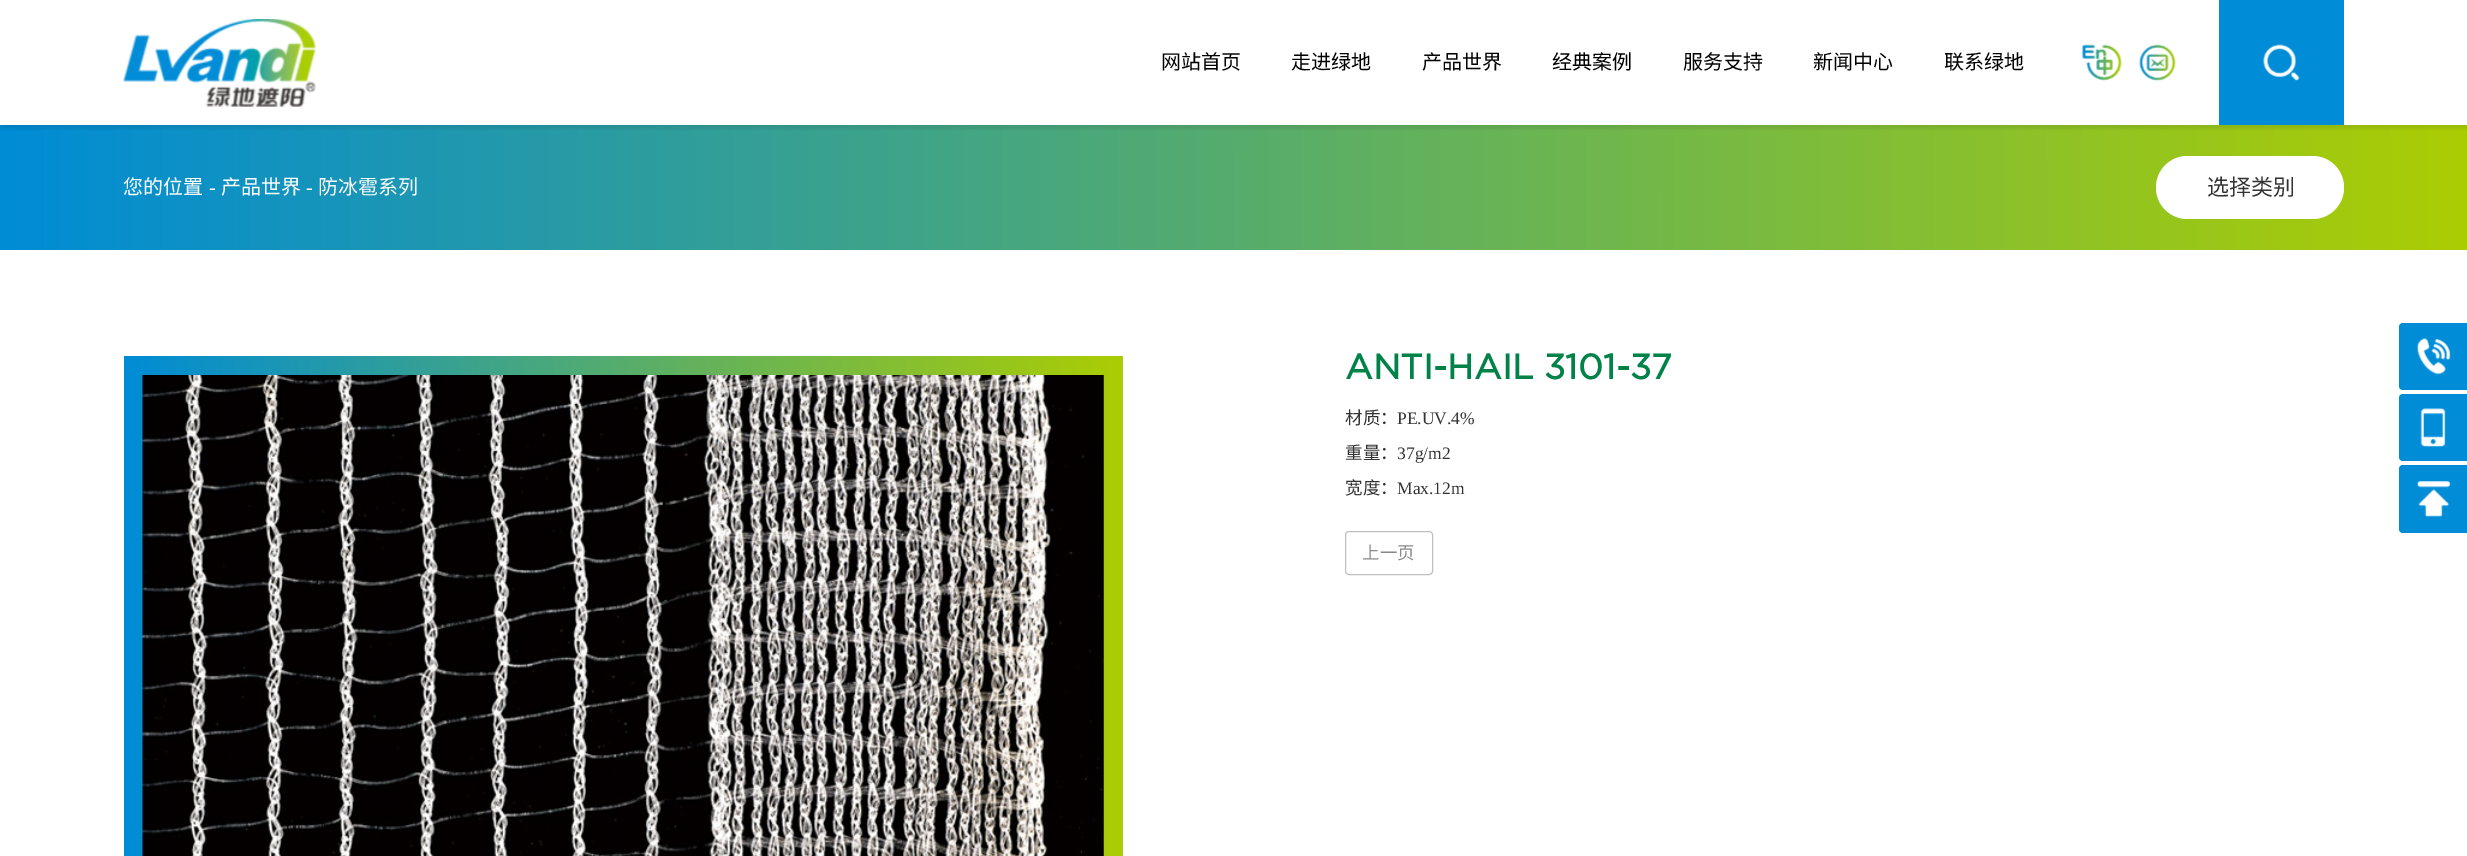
%!PS
<< /PageSize [2467 856] /PageUsesTransparency true >> setpagedevice
/mt/moveto load def
/li/lineto load def
/cp/closepath load def
/fl/fill load def
/st/stroke load def
/gs/gsave load def
/gr/grestore load def
/co { dup -16 bitshift 255 div exch dup -8 bitshift 255 and 255 div exch 255 and 255 div setrgbcolor } def
/fn { [ exch dup neg 0 0 3 -1 roll 0 0 ] selectfont } def
/tx { co fn moveto show } def
/bx { co rectfill } def
/al { dup .setfillconstantalpha .setstrokeconstantalpha } def
/rr { 5 dict begin { /r /h /w /y /x } { exch def } forall
  x r add y moveto x w add y 2 copy h add r arct x w add y h add x 1 index r arct
  x y h add x y r arct x y 2 copy exch w add exch r arct closepath end } def
/sh { 12 dict begin { /a /b /q /h /w /y /x } { exch def } forall gsave /was 0 def
  9 -2 -9 { dup b mul 4 div /e exch def 1 sub .425 mul 2.718 exch exp 1 add a .99 .min exch div /now exch def
    1 1 now sub 1 was sub div sub al /was now def
    w h .min e 2 mul add 0 gt { x e sub y e sub w e 2 mul add h e 2 mul add
      q e add b .6 mul add w h .min 2 div e add .min 0 .max rr fill } if } for grestore end } def
/im { 5 dict begin { /h /w /y /x /name } { exch def } forall
  gsave x y translate w h scale
  w h 8 [w 0 0 h 0 0] name (r) file false 3 colorimage grestore end } def
0 .pushpdf14devicefilter
0 856 translate 1 -1 scale
4 setmiterlimit
0 0 2467 856 16#FFFFFF bx
gs 0 125 mt 2467 125 li 2467 250 li 0 250 li cp clip newpath
<< /ShadingType 2 /ColorSpace /DeviceRGB /Coords [0 188 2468 187] /Extend [true true] /Function << /FunctionType 2 /Domain [0 1] /C0 [0 .549 .839] /C1 [.671 .804 .012] /N 1 >> >> shfill gr
gs
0 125 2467 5 rectclip
16#000000 co
0 4 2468 125 0 2 .08 sh
gr
(media/1.raw) 123 19 193 88 im
(media/2.raw) 2082 44 40 37 im
(media/3.raw) 2139 44 37 37 im
2219 0 125 125 16#008CD6 bx
(media/4.raw) 2263 44 37 37 im
16#FFFFFF co
2156 156 188 63 31.5 rr fl
gs 124 356 mt 1123 356 li 1123 856 li 124 856 li cp clip newpath
<< /ShadingType 2 /ColorSpace /DeviceRGB /Coords [124 666 1123 666] /Extend [true true] /Function << /FunctionType 2 /Domain [0 1] /C0 [0 .549 .839] /C1 [.671 .804 .012] /N 1 >> >> shfill gr
(media/5.raw) 142 375 962 481 im
16#C0C0C0 co
1345.5 531.5 87 43 3.5 rr st
16#008CD7 co
2399 323 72 67 4 rr fl
(media/6.raw) 2417 338 34 37 im
2399 394 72 67 4 rr fl
(media/7.raw) 2420 408 26 39 im
2399 465 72 68 4 rr fl
(media/8.raw) 2417 481 34 36 im
(网站首页) 1161 69 /NotoSansCJKSC-Regular 20 16#000000 tx
(走进绿地) 1291 69 /NotoSansCJKSC-Regular 20 16#000000 tx
(产品世界) 1422 69 /NotoSansCJKSC-Regular 20 16#000000 tx
(经典案例) 1552 69 /NotoSansCJKSC-Regular 20 16#000000 tx
(服务支持) 1683 69 /NotoSansCJKSC-Regular 20 16#000000 tx
(新闻中心) 1813 69 /NotoSansCJKSC-Regular 20 16#000000 tx
(联系绿地) 1944 69 /NotoSansCJKSC-Regular 20 16#000000 tx
(您的位置) 123 194 /NotoSansCJKSC-Regular 20 16#FFFFFF tx
(-) 209 194 /LiberationSerif-Regular 20 16#FFFFFF tx
(产品世界) 221 194 /NotoSansCJKSC-Regular 20 16#FFFFFF tx
(-) 306 194 /LiberationSerif-Regular 20 16#FFFFFF tx
(防冰雹系列) 318 194 /NotoSansCJKSC-Regular 20 16#FFFFFF tx
(选择类别) 2207 195 /NotoSansCJKSC-Regular 22 16#333333 tx
(ANTI-HAIL 3101-37) 1345 379 /Gotham-Bold 35 16#008248 tx
(材质：) 1345 424 /NotoSansCJKSC-Regular 17.5 16#333333 tx
(PE.UV.4%) 1397 424 /LiberationSerif-Regular 17.5 16#333333 tx
(重量：) 1345 459 /NotoSansCJKSC-Regular 17.5 16#333333 tx
(37g/m2) 1397 459 /LiberationSerif-Regular 17.5 16#333333 tx
(宽度：) 1345 494 /NotoSansCJKSC-Regular 17.5 16#333333 tx
(Max.12m) 1397 494 /LiberationSerif-Regular 17.5 16#333333 tx
(上一页) 1362 559 /NotoSansCJKSC-Regular 17.5 16#888888 tx
.poppdf14devicefilter showpage
